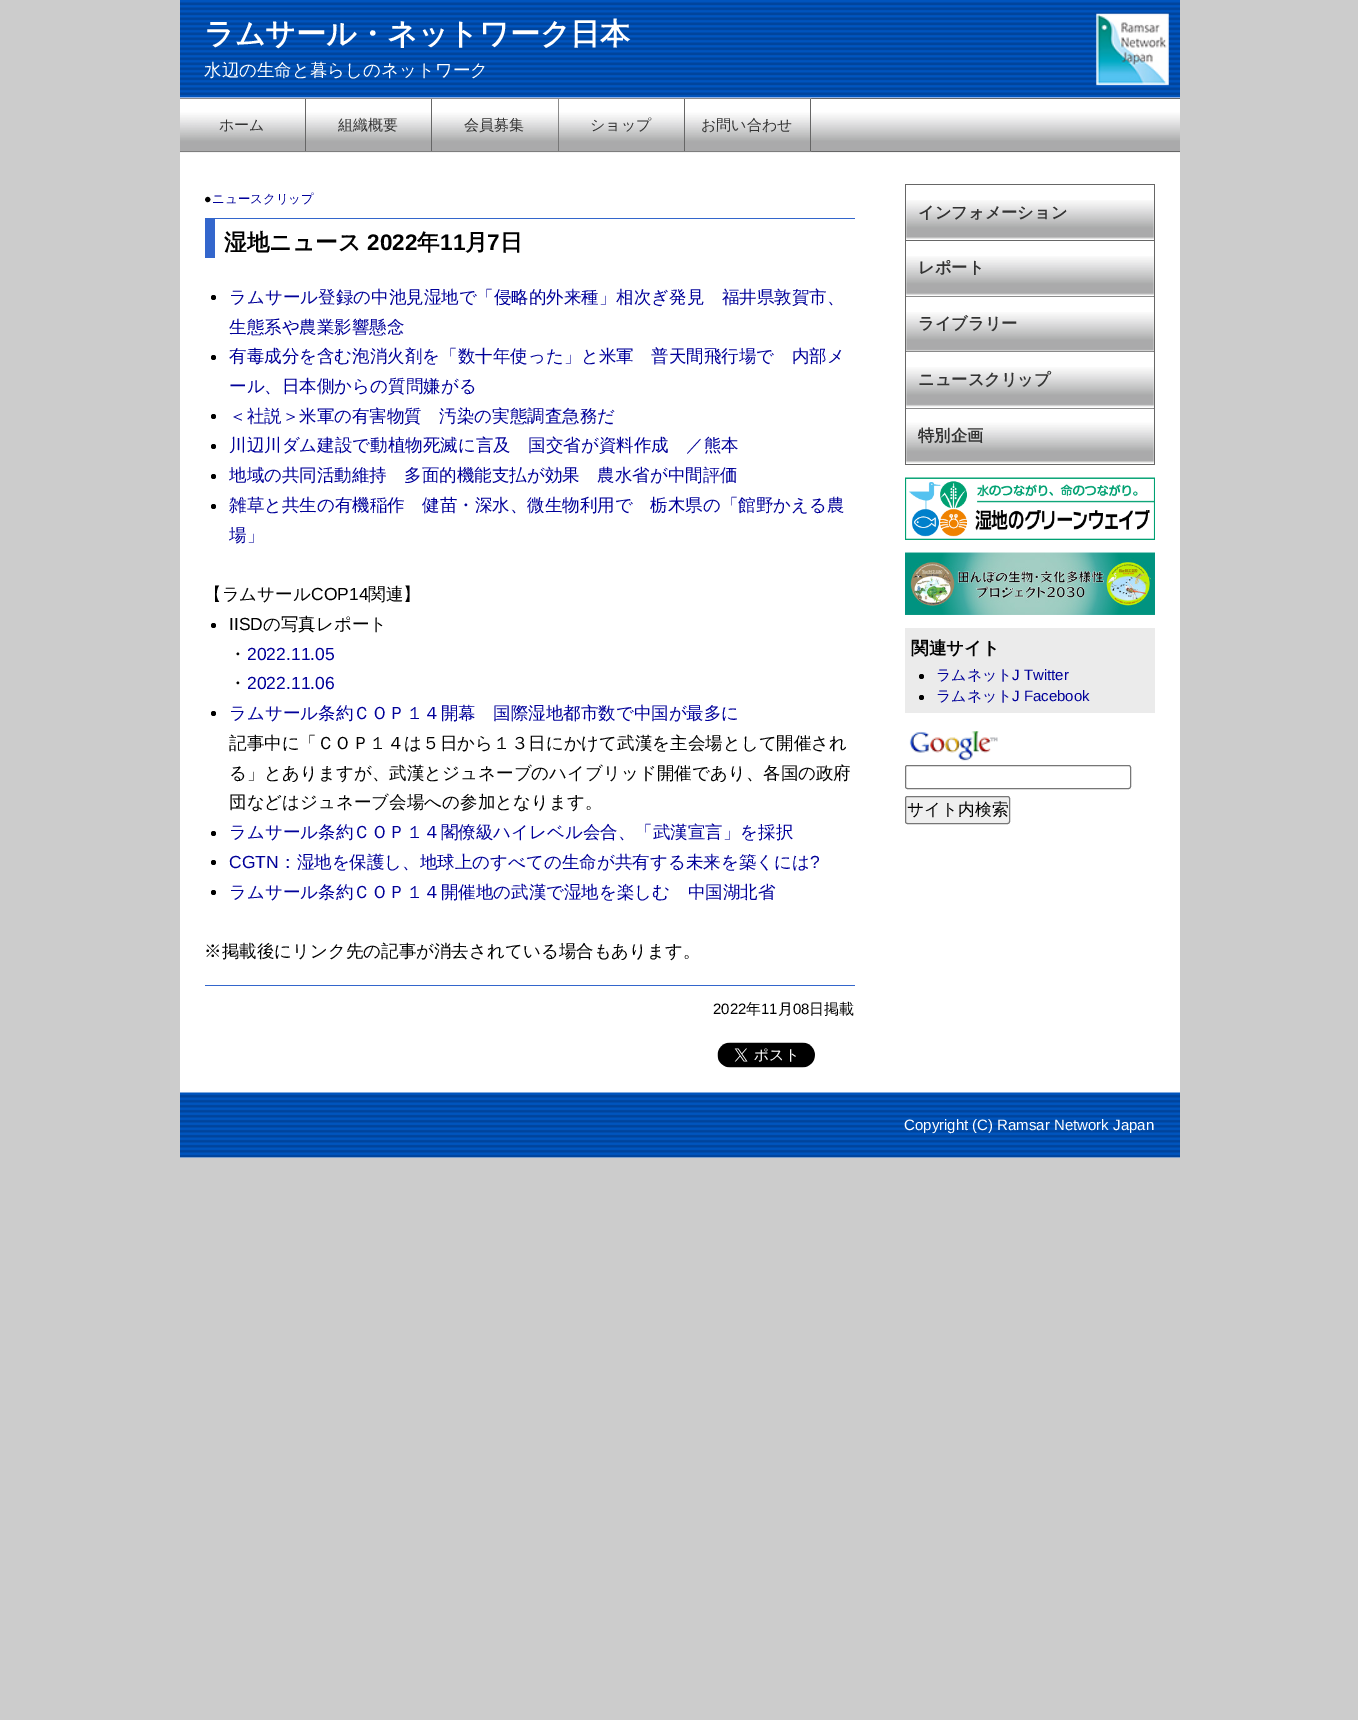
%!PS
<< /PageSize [1358 1720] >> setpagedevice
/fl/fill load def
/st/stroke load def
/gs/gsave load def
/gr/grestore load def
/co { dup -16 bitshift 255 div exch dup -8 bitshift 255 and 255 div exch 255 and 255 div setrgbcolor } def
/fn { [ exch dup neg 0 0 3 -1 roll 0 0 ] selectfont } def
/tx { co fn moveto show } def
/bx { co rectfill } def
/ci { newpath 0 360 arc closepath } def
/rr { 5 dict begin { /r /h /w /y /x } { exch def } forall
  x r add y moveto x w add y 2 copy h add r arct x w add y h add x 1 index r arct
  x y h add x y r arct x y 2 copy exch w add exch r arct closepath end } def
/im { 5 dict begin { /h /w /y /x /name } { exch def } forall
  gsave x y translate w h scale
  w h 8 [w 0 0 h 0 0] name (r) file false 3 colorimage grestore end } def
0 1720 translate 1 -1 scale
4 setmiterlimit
0 0 1358 1720 16#CCCCCC bx
180 97 1000 1061 16#FFFFFF bx
(media/1.raw) 180 0 1000 98 im
(media/2.raw) 180 97 1000 56 im
180 98 1000 1 16#666666 bx
180 151 1000 1 16#666666 bx
(media/3.raw) 180 98 127 54 im
305 99 1 52 16#666666 bx
(media/4.raw) 306 98 127 54 im
431 99 1 52 16#666666 bx
(media/5.raw) 432 98 127 54 im
558 99 1 52 16#666666 bx
(media/6.raw) 558 98 127 54 im
684 99 1 52 16#666666 bx
(media/7.raw) 685 98 127 54 im
810 99 1 52 16#666666 bx
215 218 640 1 16#3366CC bx
205 218 10 40 16#3366CC bx
16#000000 co
213.5 297.5 2.5 ci fl
213.5 357.5 2.5 ci fl
213.5 416.5 2.5 ci fl
213.5 446.5 2.5 ci fl
213.5 476.5 2.5 ci fl
213.5 506.5 2.5 ci fl
213.5 625.5 2.5 ci fl
213.5 713.5 2.5 ci fl
213.5 833.5 2.5 ci fl
213.5 862.5 2.5 ci fl
213.5 892.5 2.5 ci fl
205 985 650 1 16#3366CC bx
(media/8.raw) 717 1042 98 26 im
905 184 250 1 16#666666 bx
1154 185 1 280 16#666666 bx
905 240 250 1 16#666666 bx
905 185 1 56 16#666666 bx
(media/9.raw) 906 200 248 39 im
905 296 250 1 16#666666 bx
905 241 1 57 16#666666 bx
(media/10.raw) 906 256 248 41 im
905 351 250 1 16#666666 bx
905 298 1 55 16#666666 bx
(media/11.raw) 906 312 248 40 im
905 408 250 1 16#666666 bx
905 353 1 56 16#666666 bx
(media/12.raw) 906 367 248 40 im
905 464 250 1 16#666666 bx
905 409 1 56 16#666666 bx
(media/13.raw) 906 408 248 55 im
(media/14.raw) 905 477 250 63 im
(media/15.raw) 905 552 250 63 im
905 628 250 85 16#EBEBEB bx
16#000000 co
921.5 676.5 2.5 ci fl
921.5 697.5 2.5 ci fl
(media/16.raw) 909 731 89 30 im
16#767676 co
905.5 765.5 225 23 2 rr st
16#EFEFEF co
905.5 796.5 104 27 2 rr gs fl gr
16#767676 co
st
(media/17.raw) 180 1092 1000 66 im
(ラムサール・ネットワーク日本) 204 44 /WenQuanYiZenHei-Bold 30 16#FFFFFF tx
(水辺の生命と暮らしのネットワーク) 204 76 /WenQuanYiZenHei-Medium 17.5 16#FFFFFF tx
(ホーム) 219 130 /WenQuanYiZenHei-Medium 15 16#333333 tx
(組織概要) 338 130 /WenQuanYiZenHei-Medium 15 16#333333 tx
(会員募集) 464 130 /WenQuanYiZenHei-Medium 15 16#333333 tx
(ショップ) 590 130 /WenQuanYiZenHei-Medium 15 16#333333 tx
(お問い合わせ) 701 130 /WenQuanYiZenHei-Medium 15 16#333333 tx
(●) 204 203 /LiberationSans-Regular 12.5 16#000000 tx
(ニュースクリップ) 212 203 /WenQuanYiZenHei-Medium 12.5 16#000099 tx
(湿地ニュース) 224 250 /WenQuanYiZenHei-Bold 22.5 16#000000 tx
(2022) 367 250 /LiberationSans-Bold 22.5 16#000000 tx
(年) 417 250 /WenQuanYiZenHei-Bold 22.5 16#000000 tx
(11) 440 250 /LiberationSans-Bold 22.5 16#000000 tx
(月) 465 250 /WenQuanYiZenHei-Bold 22.5 16#000000 tx
(7) 487 250 /LiberationSans-Bold 22.5 16#000000 tx
(日) 500 250 /WenQuanYiZenHei-Bold 22.5 16#000000 tx
(ラムサール登録の中池見湿地で「侵略的外来種」相次ぎ発見　福井県敦賀市、) 229 303 /WenQuanYiZenHei-Medium 17.5 16#000099 tx
(生態系や農業影響懸念) 229 333 /WenQuanYiZenHei-Medium 17.5 16#000099 tx
(有毒成分を含む泡消火剤を「数十年使った」と米軍　普天間飛行場で　内部メ) 229 362 /WenQuanYiZenHei-Medium 17.5 16#000099 tx
(ール、日本側からの質問嫌がる) 229 392 /WenQuanYiZenHei-Medium 17.5 16#000099 tx
(＜社説＞米軍の有害物質　汚染の実態調査急務だ) 229 422 /WenQuanYiZenHei-Medium 17.5 16#000099 tx
(川辺川ダム建設で動植物死滅に言及　国交省が資料作成　／熊本) 229 451 /WenQuanYiZenHei-Medium 17.5 16#000099 tx
(地域の共同活動維持　多面的機能支払が効果　農水省が中間評価) 229 481 /WenQuanYiZenHei-Medium 17.5 16#000099 tx
(雑草と共生の有機稲作　健苗・深水、微生物利用で　栃木県の「館野かえる農) 229 511 /WenQuanYiZenHei-Medium 17.5 16#000099 tx
(場」) 229 541 /WenQuanYiZenHei-Medium 17.5 16#000099 tx
(【ラムサール) 204 600 /WenQuanYiZenHei-Medium 17.5 16#000000 tx
(COP14) 311 600 /LiberationSans-Regular 17.5 16#000000 tx
(関連】) 368 600 /WenQuanYiZenHei-Medium 17.5 16#000000 tx
(IISD) 229 630 /LiberationSans-Regular 17.5 16#000000 tx
(の写真レポート) 263 630 /WenQuanYiZenHei-Medium 17.5 16#000000 tx
(・) 229 660 /WenQuanYiZenHei-Medium 17.5 16#000000 tx
(2022.11.05) 247 660 /LiberationSans-Regular 17.5 16#000099 tx
(・) 229 689 /WenQuanYiZenHei-Medium 17.5 16#000000 tx
(2022.11.06) 247 689 /LiberationSans-Regular 17.5 16#000099 tx
(ラムサール条約ＣＯＰ１４開幕　国際湿地都市数で中国が最多に) 229 719 /WenQuanYiZenHei-Medium 17.5 16#000099 tx
(記事中に「ＣＯＰ１４は５日から１３日にかけて武漢を主会場として開催され) 229 749 /WenQuanYiZenHei-Medium 17.5 16#000000 tx
(る」とありますが、武漢とジュネーブのハイブリッド開催であり、各国の政府) 229 779 /WenQuanYiZenHei-Medium 17.5 16#000000 tx
(団などはジュネーブ会場への参加となります。) 229 808 /WenQuanYiZenHei-Medium 17.5 16#000000 tx
(ラムサール条約ＣＯＰ１４閣僚級ハイレベル会合、「武漢宣言」を採択) 229 838 /WenQuanYiZenHei-Medium 17.5 16#000099 tx
(CGTN) 229 868 /LiberationSans-Regular 17.5 16#000099 tx
(：湿地を保護し、地球上のすべての生命が共有する未来を築くには) 279 868 /WenQuanYiZenHei-Medium 17.5 16#000099 tx
(?) 810 868 /LiberationSans-Regular 17.5 16#000099 tx
(ラムサール条約ＣＯＰ１４開催地の武漢で湿地を楽しむ　中国湖北省) 229 898 /WenQuanYiZenHei-Medium 17.5 16#000099 tx
(※掲載後にリンク先の記事が消去されている場合もあります。) 204 957 /WenQuanYiZenHei-Medium 17.5 16#000000 tx
(2022) 713 1014 /LiberationSans-Regular 15 16#000000 tx
(年) 746 1014 /WenQuanYiZenHei-Medium 15 16#000000 tx
(11) 761 1014 /LiberationSans-Regular 15 16#000000 tx
(月) 778 1014 /WenQuanYiZenHei-Medium 15 16#000000 tx
(08) 793 1014 /LiberationSans-Regular 15 16#000000 tx
(日掲載) 809 1014 /WenQuanYiZenHei-Medium 15 16#000000 tx
(インフォメーション) 918 218 /WenQuanYiZenHei-Bold 16.25 16#333333 tx
(レポート) 918 273 /WenQuanYiZenHei-Bold 16.25 16#333333 tx
(ライブラリー) 918 329 /WenQuanYiZenHei-Bold 16.25 16#333333 tx
(ニュースクリップ) 918 385 /WenQuanYiZenHei-Bold 16.25 16#333333 tx
(特別企画) 918 441 /WenQuanYiZenHei-Bold 16.25 16#333333 tx
(関連サイト) 911 654 /WenQuanYiZenHei-Bold 17.5 16#000000 tx
(ラムネット) 936 680 /WenQuanYiZenHei-Medium 15 16#000099 tx
(J Twitter) 1012 680 /LiberationSans-Regular 15 16#000099 tx
(ラムネット) 936 701 /WenQuanYiZenHei-Medium 15 16#000099 tx
(J Facebook) 1012 701 /LiberationSans-Regular 15 16#000099 tx
(サイト内検索) 907 815 /WenQuanYiZenHei-Medium 16.75 16#000000 tx
(Copyright \(C\) Ramsar Network Japan) 904 1130 /LiberationSans-Regular 15 16#FFFFFF tx
showpage
